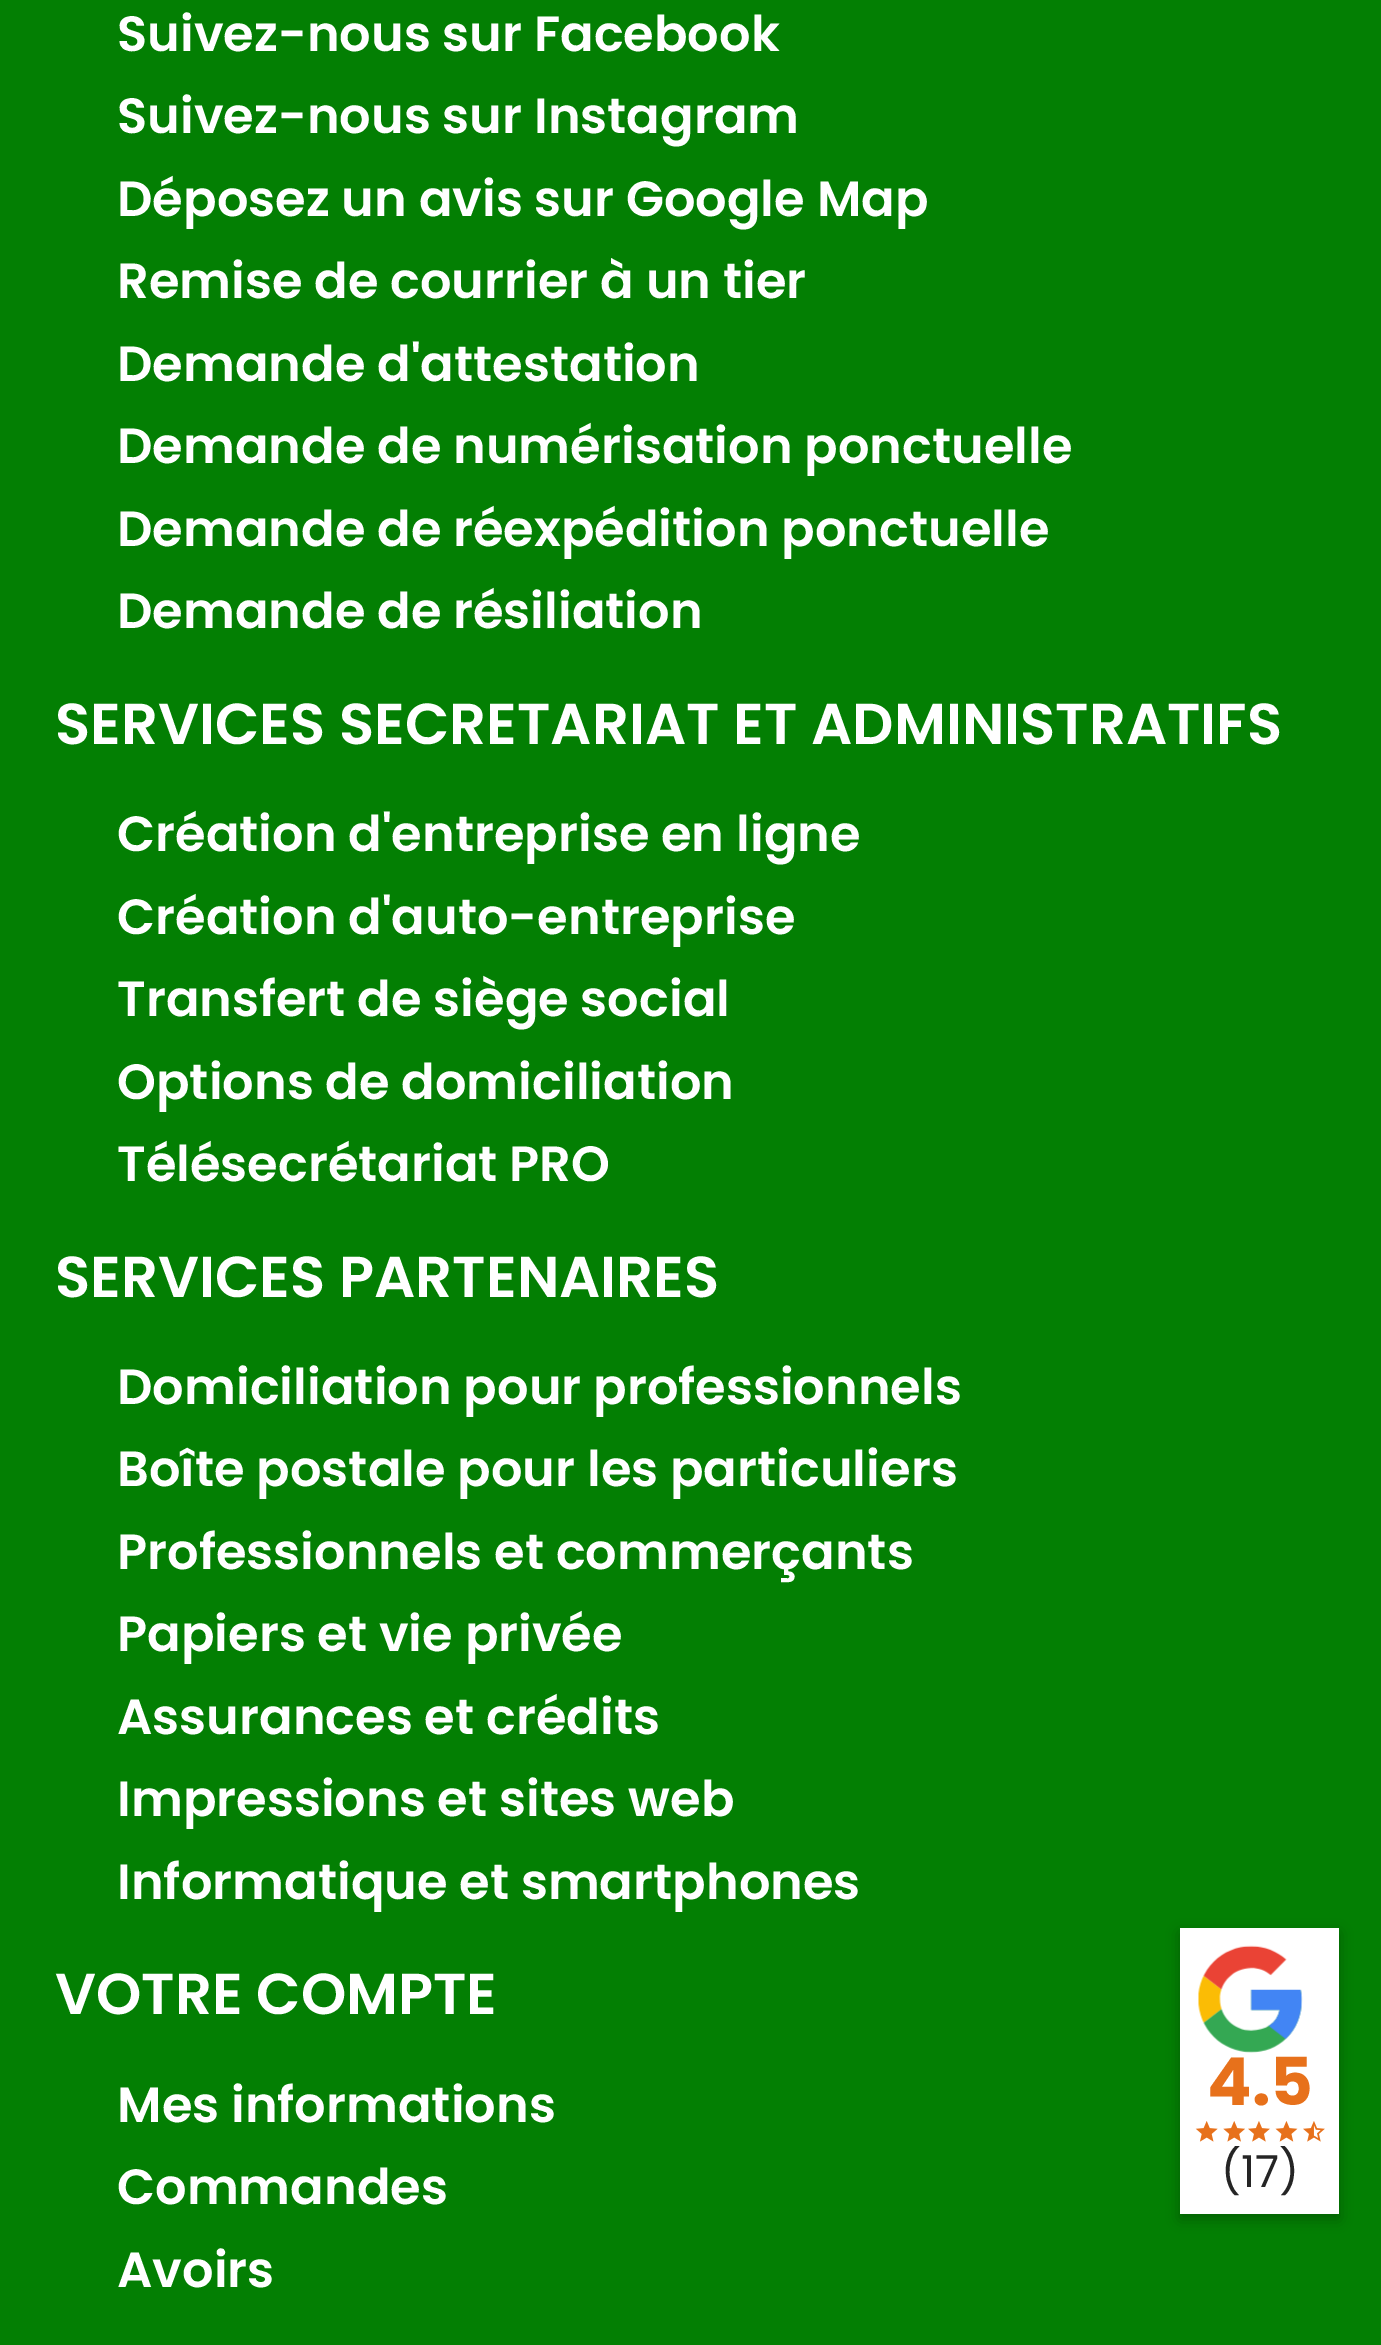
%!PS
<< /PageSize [1381 2345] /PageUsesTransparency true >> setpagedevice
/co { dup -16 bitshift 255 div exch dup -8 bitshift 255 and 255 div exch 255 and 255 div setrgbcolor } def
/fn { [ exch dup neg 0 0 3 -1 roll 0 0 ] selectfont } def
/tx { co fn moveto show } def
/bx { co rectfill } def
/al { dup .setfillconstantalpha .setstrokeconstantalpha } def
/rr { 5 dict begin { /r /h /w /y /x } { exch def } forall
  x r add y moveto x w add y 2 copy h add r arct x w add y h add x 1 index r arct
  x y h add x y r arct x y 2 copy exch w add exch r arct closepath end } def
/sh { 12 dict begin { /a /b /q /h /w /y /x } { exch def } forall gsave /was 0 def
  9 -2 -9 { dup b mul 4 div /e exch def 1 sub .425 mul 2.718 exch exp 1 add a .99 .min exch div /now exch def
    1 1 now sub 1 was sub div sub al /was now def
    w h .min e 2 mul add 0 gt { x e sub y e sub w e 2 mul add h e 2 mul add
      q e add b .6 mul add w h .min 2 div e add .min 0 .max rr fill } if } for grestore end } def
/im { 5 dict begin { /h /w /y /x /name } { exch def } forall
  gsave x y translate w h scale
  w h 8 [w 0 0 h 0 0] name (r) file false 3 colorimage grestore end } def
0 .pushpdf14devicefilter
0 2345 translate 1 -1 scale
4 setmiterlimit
0 0 1381 2345 16#037F03 bx
16#000000 co
1180 1933 159 286 0 7 .26 sh
1180 1928 159 286 16#FFFFFF bx
(media/1.raw) 1198 1945 105 108 im
(media/2.raw) 1195 2121 23 21 im
(media/3.raw) 1223 2121 22 21 im
(media/4.raw) 1248 2121 22 21 im
(media/5.raw) 1275 2121 23 21 im
(media/6.raw) 1303 2121 22 21 im
(Suivez-nous sur Facebook) 117 51 /Poppins-SemiBold 49.5 16#FFFFFF tx
(Suivez-nous sur Instagram) 117 133 /Poppins-SemiBold 49.5 16#FFFFFF tx
(Déposez un avis sur Google Map) 117 216 /Poppins-SemiBold 49.5 16#FFFFFF tx
(Remise de courrier à un tier) 117 298 /Poppins-SemiBold 49.5 16#FFFFFF tx
(Demande d'attestation) 117 381 /Poppins-SemiBold 49.5 16#FFFFFF tx
(Demande de numérisation ponctuelle) 117 463 /Poppins-SemiBold 49.5 16#FFFFFF tx
(Demande de réexpédition ponctuelle) 117 546 /Poppins-SemiBold 49.5 16#FFFFFF tx
(Demande de résiliation) 117 628 /Poppins-SemiBold 49.5 16#FFFFFF tx
(SERVICES SECRETARIAT ET ADMINISTRATIFS) 55 744 /Poppins-SemiBold 57.75 16#FFFFFF tx
(Création d'entreprise en ligne) 117 851 /Poppins-SemiBold 49.5 16#FFFFFF tx
(Création d'auto-entreprise) 117 934 /Poppins-SemiBold 49.5 16#FFFFFF tx
(Transfert de siège social) 117 1016 /Poppins-SemiBold 49.5 16#FFFFFF tx
(Options de domiciliation) 117 1099 /Poppins-SemiBold 49.5 16#FFFFFF tx
(Télésecrétariat PRO) 117 1181 /Poppins-SemiBold 49.5 16#FFFFFF tx
(SERVICES PARTENAIRES) 55 1297 /Poppins-SemiBold 57.75 16#FFFFFF tx
(Domiciliation pour professionnels) 117 1404 /Poppins-SemiBold 49.5 16#FFFFFF tx
(Boîte postale pour les particuliers) 117 1486 /Poppins-SemiBold 49.5 16#FFFFFF tx
(Professionnels et commerçants) 117 1569 /Poppins-SemiBold 49.5 16#FFFFFF tx
(Papiers et vie privée) 117 1651 /Poppins-SemiBold 49.5 16#FFFFFF tx
(Assurances et crédits) 117 1734 /Poppins-SemiBold 49.5 16#FFFFFF tx
(Impressions et sites web) 117 1816 /Poppins-SemiBold 49.5 16#FFFFFF tx
(Informatique et smartphones) 117 1899 /Poppins-SemiBold 49.5 16#FFFFFF tx
(VOTRE COMPTE) 55 2014 /Poppins-SemiBold 57.75 16#FFFFFF tx
(Mes informations) 117 2122 /Poppins-SemiBold 49.5 16#FFFFFF tx
(Commandes) 117 2204 /Poppins-SemiBold 49.5 16#FFFFFF tx
(Avoirs) 117 2287 /Poppins-SemiBold 49.5 16#FFFFFF tx
(4.5) 1207 2105 /Poppins-Bold 66 16#E7711B tx
(\(17\)) 1221 2187 /Poppins-Regular 44 16#252525 tx
.poppdf14devicefilter showpage
